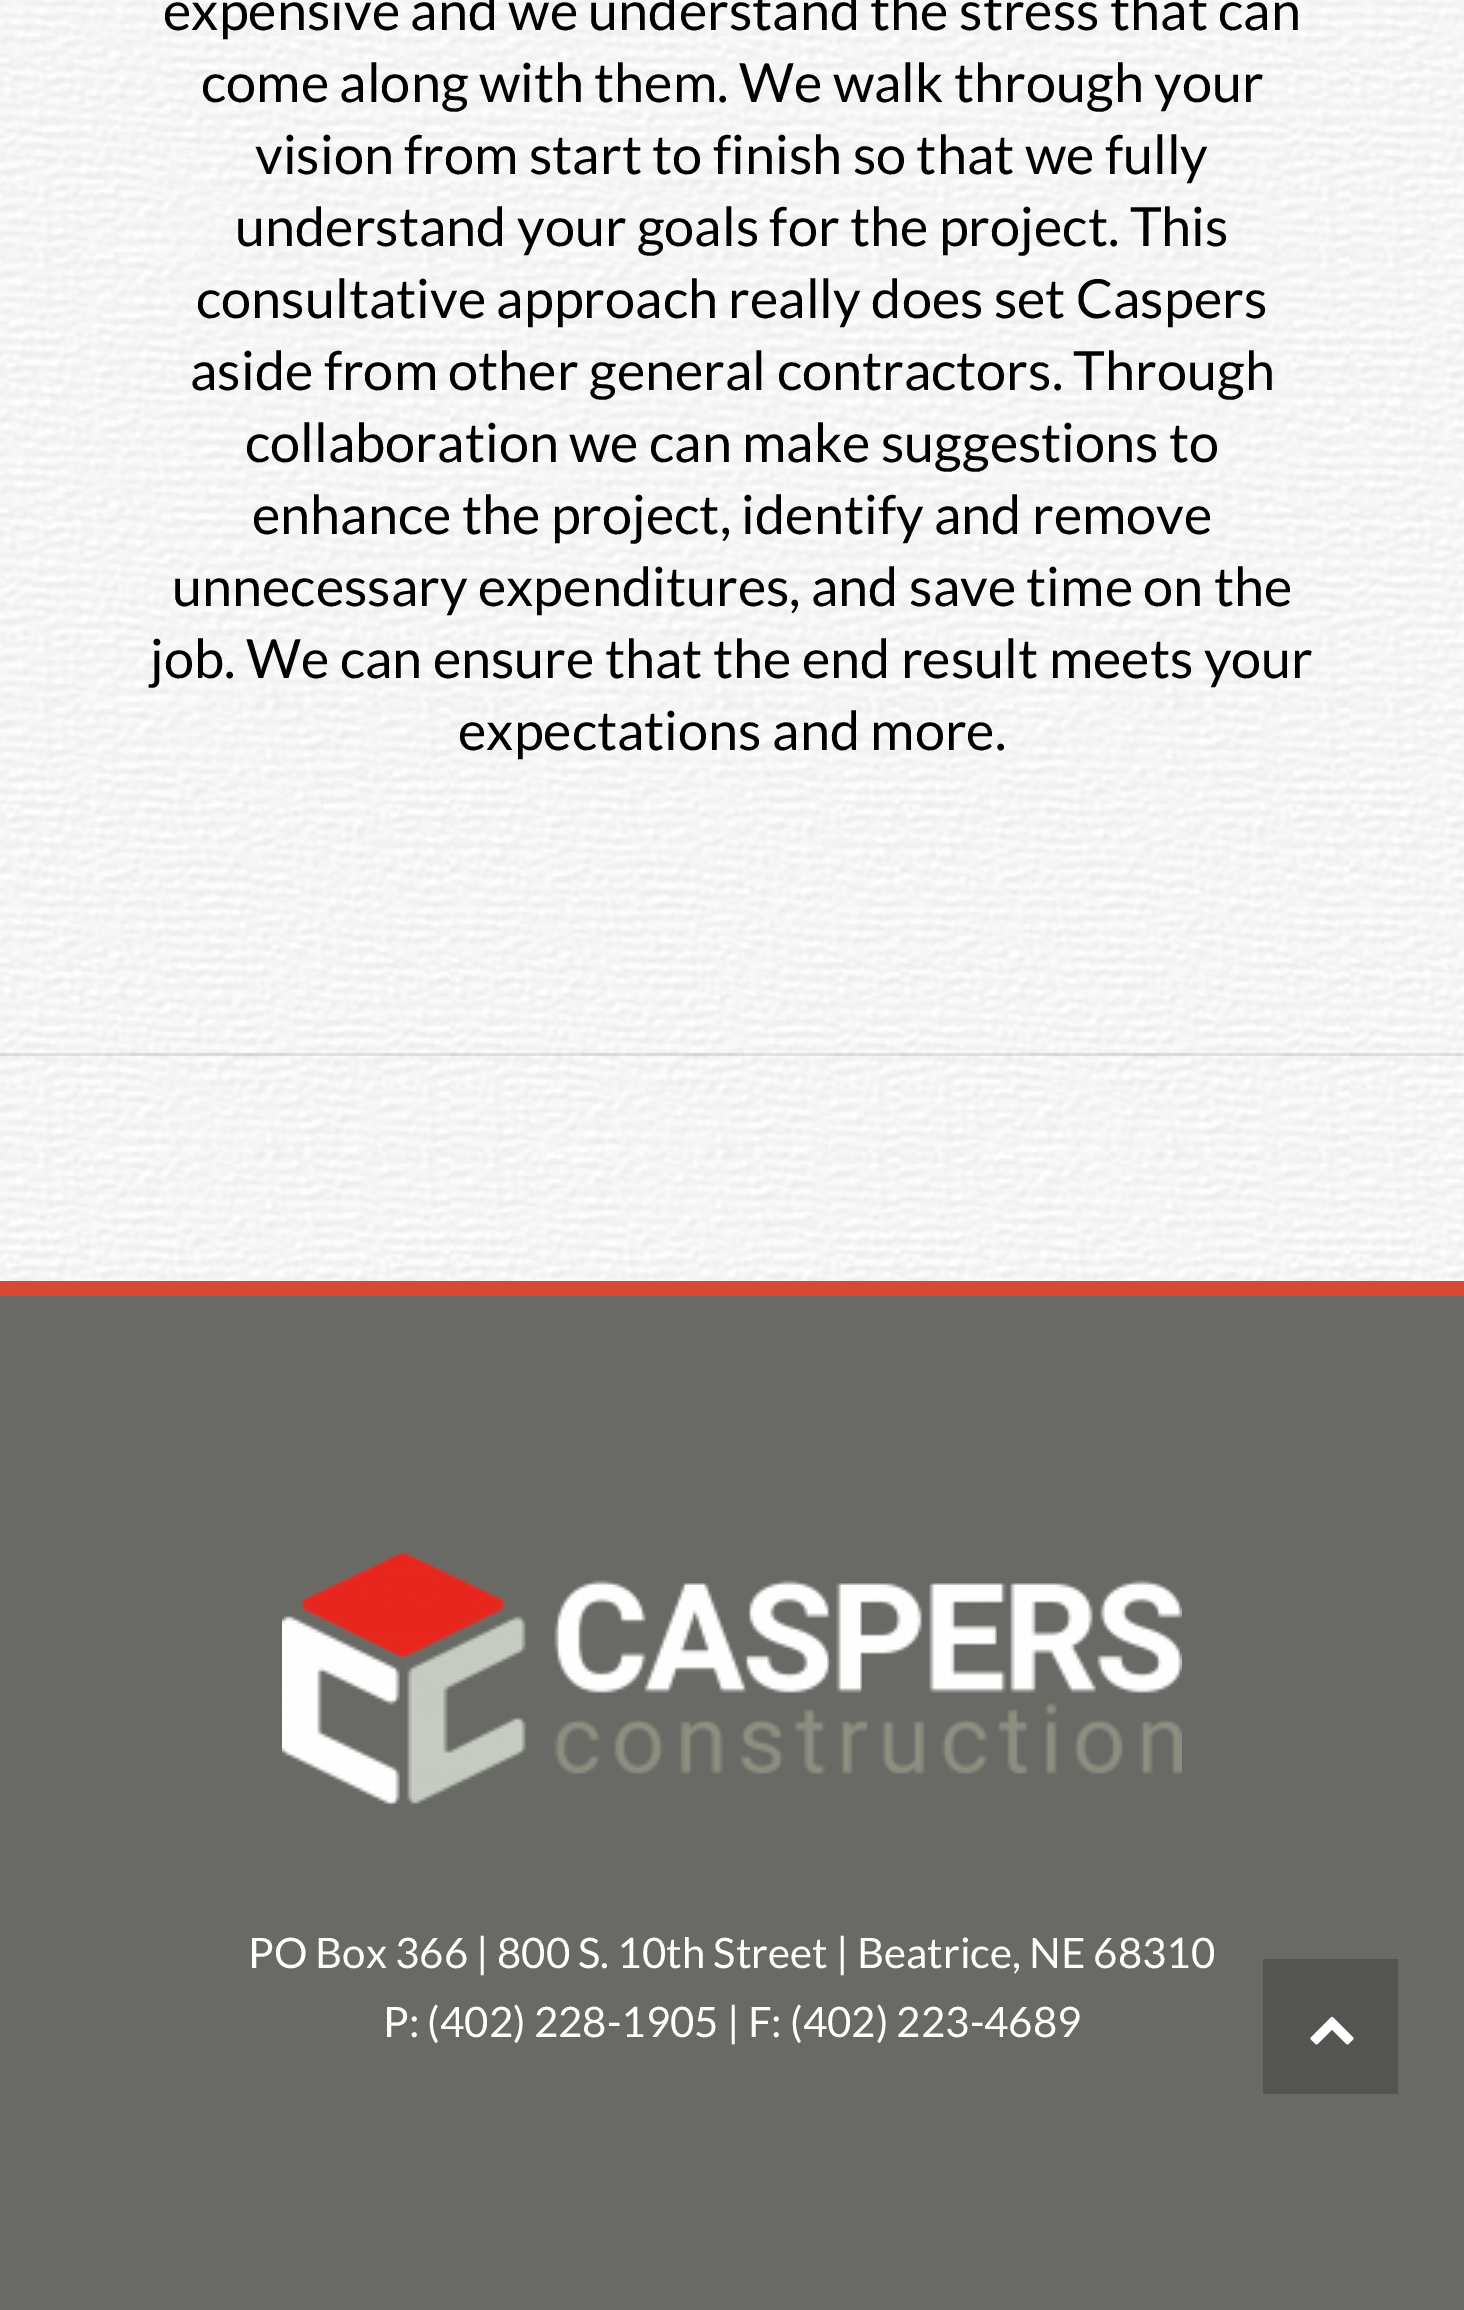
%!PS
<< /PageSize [1464 2310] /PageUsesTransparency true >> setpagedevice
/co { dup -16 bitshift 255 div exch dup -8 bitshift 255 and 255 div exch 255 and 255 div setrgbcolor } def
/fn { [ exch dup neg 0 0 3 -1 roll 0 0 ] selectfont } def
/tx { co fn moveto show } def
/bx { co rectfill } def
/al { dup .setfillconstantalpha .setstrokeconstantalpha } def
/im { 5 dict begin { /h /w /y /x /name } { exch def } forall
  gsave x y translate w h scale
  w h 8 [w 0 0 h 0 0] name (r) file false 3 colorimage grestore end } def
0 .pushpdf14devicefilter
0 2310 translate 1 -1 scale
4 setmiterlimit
0 0 1464 2310 16#696A65 bx
(media/1.raw) 0 0 1464 1281 im
0.1 al
0 1053 1464 3 16#000000 bx
1 al
0 1281 1464 15 16#D84935 bx
(media/2.raw) 282 1550 900 257 im
1263 1959 135 135 16#545551 bx
(media/3.raw) 1310 2016 44 29 im
(expensive and we understand the stress that can) 163 30 /Lato-Regular 54 16#000000 tx
(come along with them. We walk through your) 201 102 /Lato-Regular 54 16#000000 tx
(vision from start to finish so that we fully) 255 174 /Lato-Regular 54 16#000000 tx
(understand your goals for the project. This) 235 246 /Lato-Regular 54 16#000000 tx
(consultative approach really does set Caspers) 196 318 /Lato-Regular 54 16#000000 tx
(aside from other general contractors. Through) 190 390 /Lato-Regular 54 16#000000 tx
(collaboration we can make suggestions to) 245 462 /Lato-Regular 54 16#000000 tx
(enhance the project, identify and remove) 252 534 /Lato-Regular 54 16#000000 tx
(unnecessary expenditures, and save time on the) 172 606 /Lato-Regular 54 16#000000 tx
(job. We can ensure that the end result meets your) 150 678 /Lato-Regular 54 16#000000 tx
(expectations and more.) 458 750 /Lato-Regular 54 16#000000 tx
(PO Box 366 | 800 S. 10th Street | Beatrice, NE 68310) 248 1968 /Lato-Regular 42 16#FFFFFF tx
(P: \(402\) 228-1905 | F: \(402\) 223-4689) 383 2037 /Lato-Regular 42 16#FFFFFF tx
.poppdf14devicefilter showpage
